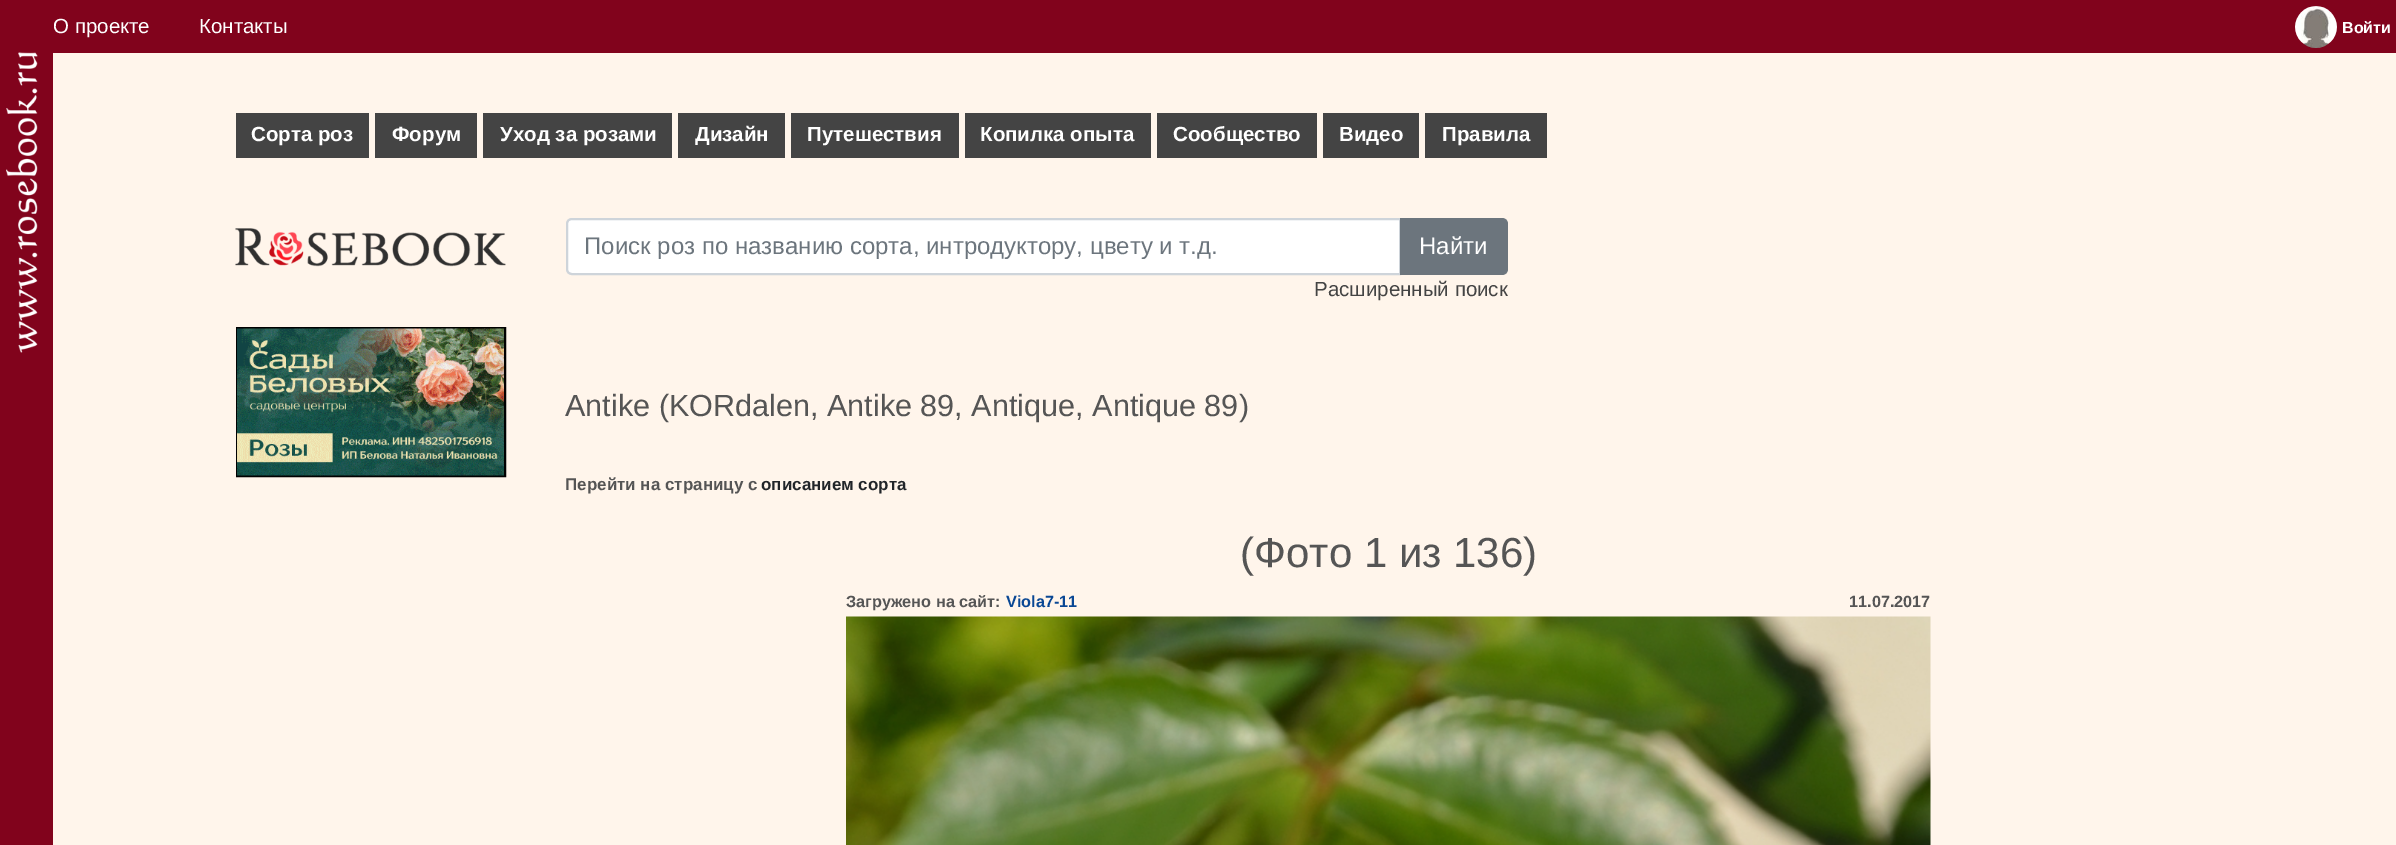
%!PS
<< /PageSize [2396 845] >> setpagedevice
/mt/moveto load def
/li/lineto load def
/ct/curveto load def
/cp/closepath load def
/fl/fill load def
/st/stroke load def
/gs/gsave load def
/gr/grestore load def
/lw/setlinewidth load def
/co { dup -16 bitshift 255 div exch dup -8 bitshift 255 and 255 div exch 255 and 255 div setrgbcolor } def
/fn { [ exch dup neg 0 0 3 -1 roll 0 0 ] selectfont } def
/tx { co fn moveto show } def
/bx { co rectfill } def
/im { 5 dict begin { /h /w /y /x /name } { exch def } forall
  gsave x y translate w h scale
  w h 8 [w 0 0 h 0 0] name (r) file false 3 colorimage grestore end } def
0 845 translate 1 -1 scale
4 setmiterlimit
0 0 2396 845 16#FFF5EB bx
0 0 53 845 16#81031C bx
(media/1.raw) 6 52 32 301 im
53 0 2343 53 16#81031C bx
(media/2.raw) 2295 6 42 42 im
236 113 133 45 16#444444 bx
375 113 102 45 16#444444 bx
483 113 189 45 16#444444 bx
678 113 107 45 16#444444 bx
791 113 168 45 16#444444 bx
965 113 186 45 16#444444 bx
1157 113 160 45 16#444444 bx
1323 113 96 45 16#444444 bx
1425 113 122 45 16#444444 bx
(media/3.raw) 235 228 271 39 im
16#000000 co
2 lw
237 328 268 148 rectstroke
(media/4.raw) 237 328 267 148 im
16#FFFFFF co
572 219 mt 1400 219 li 1400 274 li 572 274 li 569 274 567 272 567 269 ct 567 224 li 567 221 569 219 572 219 ct cp gs fl gr
16#CED4DA co
st
16#6C757D co
1400 218 mt 1502 218 li 1505.5 218 1508 220.5 1508 224 ct 1508 269 li 1508 272.5 1505.5 275 1502 275 ct 1400 275 li cp fl
(media/5.raw) 846 616 1085 229 im
(О проекте) 53 33 /LiberationSans-Regular 20.5 16#FFFFFF tx
(Контакты) 199 33 /LiberationSans-Regular 20.5 16#FFFFFF tx
(Войти) 2342 33 /LiberationSans-Bold 16 16#FFFFFF tx
(Сорта роз) 251 141 /LiberationSans-Bold 20.5 16#FFFFFF tx
(Форум) 392 141 /LiberationSans-Bold 20.5 16#FFFFFF tx
(Уход за розами) 500 141 /LiberationSans-Bold 20.5 16#FFFFFF tx
(Дизайн) 695 141 /LiberationSans-Bold 20.5 16#FFFFFF tx
(Путешествия) 807 141 /LiberationSans-Bold 20.5 16#FFFFFF tx
(Копилка опыта) 980 141 /LiberationSans-Bold 20.5 16#FFFFFF tx
(Сообщество) 1173 141 /LiberationSans-Bold 20.5 16#FFFFFF tx
(Видео) 1339 141 /LiberationSans-Bold 20.5 16#FFFFFF tx
(Правила) 1442 141 /LiberationSans-Bold 20.5 16#FFFFFF tx
(Поиск роз по названию сорта, интродуктору, цвету и т.д.) 584 254 /LiberationSans-Regular 24 16#6C757D tx
(Найти) 1419 254 /LiberationSans-Regular 24 16#FFFFFF tx
(Расширенный поиск) 1314 296 /LiberationSans-Regular 20.5 16#444444 tx
(Antike \(KORdalen, Antike 89, Antique, Antique 89\)) 565 416 /LiberationSans-Regular 30.6 16#555555 tx
(Перейти на страницу с) 565 490 /LiberationSans-Bold 17 16#555555 tx
(описанием сорта) 761 490 /LiberationSans-Bold 17 16#212529 tx
(\(Фото 1 из 136\)) 1240 567 /LiberationSans-Regular 42 16#555555 tx
(Загружено на сайт:) 846 607 /LiberationSans-Bold 16.25 16#555555 tx
(Viola7-11) 1006 607 /LiberationSans-Bold 16.25 16#094794 tx
(11.07.2017) 1849 607 /LiberationSans-Bold 16.25 16#555555 tx
showpage
